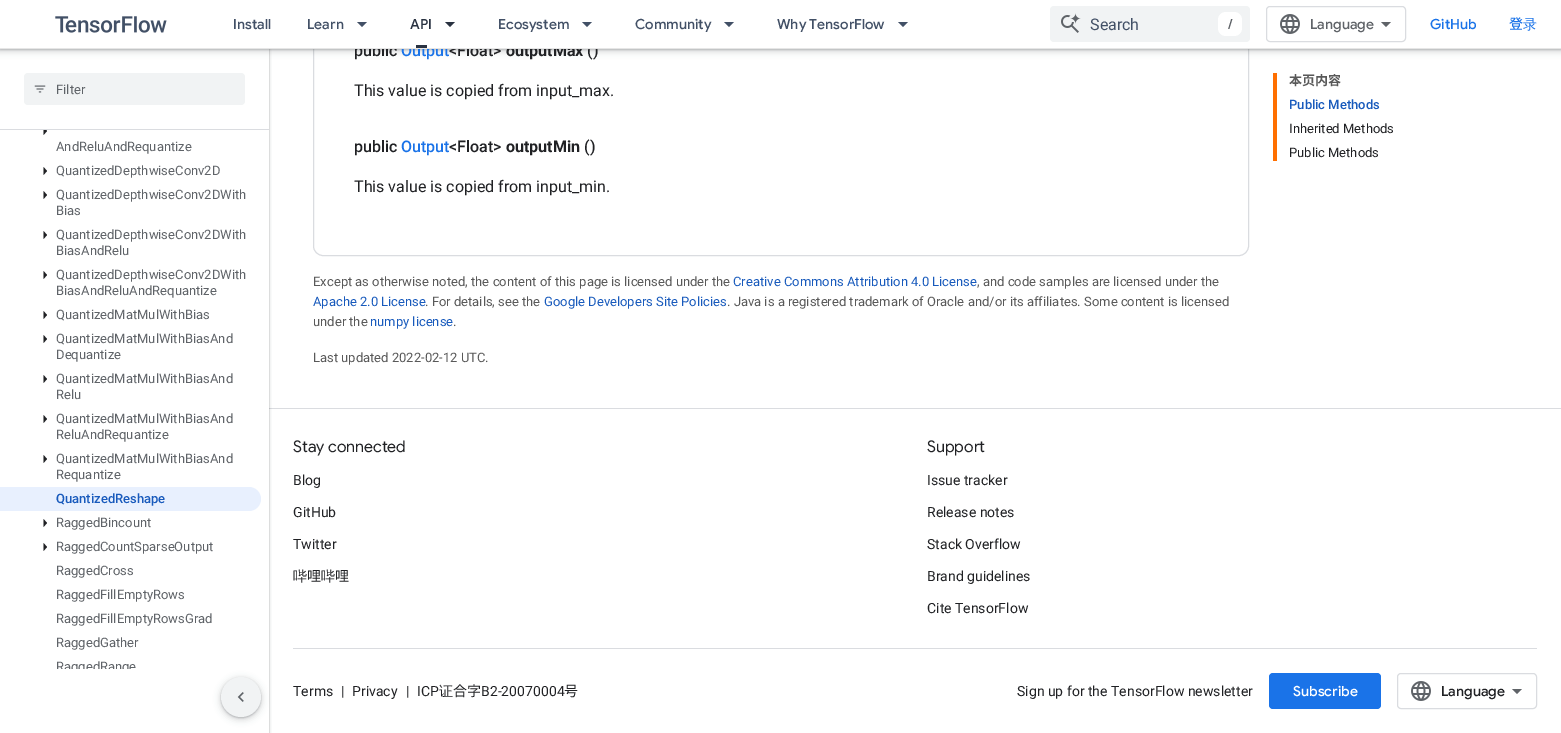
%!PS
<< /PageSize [1561 733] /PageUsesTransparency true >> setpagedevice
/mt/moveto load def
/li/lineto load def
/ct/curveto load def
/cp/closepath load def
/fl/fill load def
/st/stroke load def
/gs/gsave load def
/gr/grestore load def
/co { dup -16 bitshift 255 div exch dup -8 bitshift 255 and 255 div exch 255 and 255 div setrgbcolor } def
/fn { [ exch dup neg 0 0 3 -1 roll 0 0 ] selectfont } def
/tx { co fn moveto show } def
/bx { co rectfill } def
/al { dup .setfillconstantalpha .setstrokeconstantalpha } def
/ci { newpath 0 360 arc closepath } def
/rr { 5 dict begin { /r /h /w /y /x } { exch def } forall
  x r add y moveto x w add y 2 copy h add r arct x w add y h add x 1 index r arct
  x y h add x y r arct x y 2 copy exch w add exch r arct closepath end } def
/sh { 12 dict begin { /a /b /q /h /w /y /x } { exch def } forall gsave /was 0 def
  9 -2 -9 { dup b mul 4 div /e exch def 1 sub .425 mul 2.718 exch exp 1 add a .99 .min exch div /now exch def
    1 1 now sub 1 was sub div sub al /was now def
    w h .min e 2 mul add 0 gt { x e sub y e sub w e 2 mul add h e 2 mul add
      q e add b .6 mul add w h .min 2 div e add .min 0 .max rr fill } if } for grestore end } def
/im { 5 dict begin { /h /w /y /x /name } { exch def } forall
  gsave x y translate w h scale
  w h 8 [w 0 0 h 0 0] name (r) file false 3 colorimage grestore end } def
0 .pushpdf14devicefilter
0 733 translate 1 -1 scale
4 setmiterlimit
0 0 1561 733 16#FFFFFF bx
269 408 1292 1 16#DADCE0 bx
gs
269 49 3 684 rectclip
16#3C4043 co
-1 0 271 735 0 1.5 .15 sh
gr
gs
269 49 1 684 rectclip
16#3C4043 co
0 1 269 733 0 1 .3 sh
gr
313.5 -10.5 935 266 9.5 rr st
16#3C4043 co
-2 -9 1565 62 0 3 .15 sh
0 -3 1561 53 0 1 .3 sh
16#202124 co
43.5 135 mt 43.5 127 li 47 131 li cp fl
43 127 3 2 16#FFFFFF bx
0 129 269 1 16#DADCE0 bx
16#F1F3F4 co
24 73 221 32 4 rr fl
(media/4.raw) 34 85 12 8 im
16#202124 co
43.5 175 mt 43.5 167 li 47 171 li cp fl
43.5 199 mt 43.5 191 li 47 195 li cp fl
43.5 239 mt 43.5 231 li 47 235 li cp fl
43.5 279 mt 43.5 271 li 47 275 li cp fl
43.5 319 mt 43.5 311 li 47 315 li cp fl
43.5 343 mt 43.5 335 li 47 339 li cp fl
43.5 383 mt 43.5 375 li 47 379 li cp fl
43.5 423 mt 43.5 415 li 47 419 li cp fl
43.5 463 mt 43.5 455 li 47 459 li cp fl
16#E8F0FE co
0 487 mt 249 487 li 255.5 487 261 492.5 261 499 ct 261 505.5 255.5 511 249 511 ct 0 511 li cp fl
16#202124 co
43.5 527 mt 43.5 519 li 47 523 li cp fl
43.5 551 mt 43.5 543 li 47 547 li cp fl
1273 73 4 88 16#FF6F00 bx
293 648 1244 1 16#DADCE0 bx
16#1A73E8 co
1269 673 112 36 4 rr fl
16#DADCE0 co
1397.5 673.5 139 35 3.5 rr st
(media/3.raw) 1411 681 20 20 im
16#5F6368 co
1517 694 mt 1512 689 li 1522 689 li cp fl
16#3C4043 co
219 677 44 44 22 3 .15 sh
221 678 40 40 20 1 .3 sh
16#F1F3F4 co
241 697 20 ci fl
(media/5.raw) 237 692 7 10 im
(Filter) 56 94 /Roboto-Regular 13 16#5F6368 tx
(AndReluAndRequantize) 56 151 /Roboto-Regular 13 16#5F6368 tx
(QuantizedDepthwiseConv2D) 56 175 /Roboto-Regular 13 16#5F6368 tx
(QuantizedDepthwiseConv2DWith) 56 199 /Roboto-Regular 13 16#5F6368 tx
(Bias) 56 215 /Roboto-Regular 13 16#5F6368 tx
(QuantizedDepthwiseConv2DWith) 56 239 /Roboto-Regular 13 16#5F6368 tx
(BiasAndRelu) 56 255 /Roboto-Regular 13 16#5F6368 tx
(QuantizedDepthwiseConv2DWith) 56 279 /Roboto-Regular 13 16#5F6368 tx
(BiasAndReluAndRequantize) 56 295 /Roboto-Regular 13 16#5F6368 tx
(QuantizedMatMulWithBias) 56 319 /Roboto-Regular 13 16#5F6368 tx
(QuantizedMatMulWithBiasAnd) 56 343 /Roboto-Regular 13 16#5F6368 tx
(Dequantize) 56 359 /Roboto-Regular 13 16#5F6368 tx
(QuantizedMatMulWithBiasAnd) 56 383 /Roboto-Regular 13 16#5F6368 tx
(Relu) 56 399 /Roboto-Regular 13 16#5F6368 tx
(QuantizedMatMulWithBiasAnd) 56 423 /Roboto-Regular 13 16#5F6368 tx
(ReluAndRequantize) 56 439 /Roboto-Regular 13 16#5F6368 tx
(QuantizedMatMulWithBiasAnd) 56 463 /Roboto-Regular 13 16#5F6368 tx
(Requantize) 56 479 /Roboto-Regular 13 16#5F6368 tx
(QuantizedReshape) 56 503 /Roboto-Medium 13 16#185ABC tx
(RaggedBincount) 56 527 /Roboto-Regular 13 16#5F6368 tx
(RaggedCountSparseOutput) 56 551 /Roboto-Regular 13 16#5F6368 tx
(RaggedCross) 56 575 /Roboto-Regular 13 16#5F6368 tx
(RaggedFillEmptyRows) 56 599 /Roboto-Regular 13 16#5F6368 tx
(RaggedFillEmptyRowsGrad) 56 623 /Roboto-Regular 13 16#5F6368 tx
(RaggedGather) 56 647 /Roboto-Regular 13 16#5F6368 tx
(RaggedRange) 56 671 /Roboto-Regular 13 16#5F6368 tx
(public) 354 56 /Roboto-Medium 16 16#202124 tx
(Output) 401 56 /Roboto-Medium 16 16#1A73E8 tx
(<Float>) 449 56 /Roboto-Medium 16 16#202124 tx
(outputMax) 506 56 /Roboto-Bold 16 16#202124 tx
(\(\)) 587 56 /Roboto-Medium 16 16#202124 tx
0 0 1561 48 16#FFFFFF bx
16#F1F3F4 co
1050 6 200 36 4 rr fl
16#FFFFFF co
1218 12 24 24 8 rr fl
(/) 1228 29 /GoogleSans-Medium 14 16#5F6368 tx
(media/2.raw) 1061 13 20 20 im
(Search) 1090 30 /Roboto-Regular 16 16#425066 tx
(Why TensorFlow) 777 29 /GoogleSans-Medium 14 16#425066 tx
(Community) 635 29 /GoogleSans-Medium 14 16#425066 tx
(Ecosystem) 498 29 /GoogleSans-Medium 14 16#425066 tx
416 45 11 3 16#293241 bx
(API) 410 29 /GoogleSans-Medium 14 16#293241 tx
(Learn) 307 29 /GoogleSans-Medium 14 16#425066 tx
898 22 mt 908 22 li 903 27 li cp fl
724 22 mt 734 22 li 729 27 li cp fl
582 22 mt 592 22 li 587 27 li cp fl
16#293241 co
445 22 mt 455 22 li 450 27 li cp fl
16#425066 co
357 22 mt 367 22 li 362 27 li cp fl
(Install) 233 29 /GoogleSans-Medium 14 16#425066 tx
16#DADCE0 co
1266.5 6.5 139 35 3.5 rr st
16#5F6368 co
1386 27 mt 1381 22 li 1391 22 li cp fl
(Language) 1310 29 /GoogleSans-Medium 14 16#5F6368 tx
(media/3.raw) 1280 14 20 20 im
(录) 1523 29 /WenQuanYiZenHei-Medium 14 16#1A73E8 tx
(登) 1509 29 /NotoSansJP-Medium 14 16#1A73E8 tx
(GitHub) 1430 29 /GoogleSans-Medium 14 16#1A73E8 tx
(media/1.raw) 55 16 112 17 im
0 48 1561 1 16#E6E6E6 bx
(This value is copied from input_max.) 354 96 /Roboto-Regular 16 16#202124 tx
(public) 354 152 /Roboto-Medium 16 16#202124 tx
(Output) 401 152 /Roboto-Medium 16 16#1A73E8 tx
(<Float>) 449 152 /Roboto-Medium 16 16#202124 tx
(outputMin) 506 152 /Roboto-Bold 16 16#202124 tx
(\(\)) 584 152 /Roboto-Medium 16 16#202124 tx
(This value is copied from input_min.) 354 192 /Roboto-Regular 16 16#202124 tx
(Except as otherwise noted, the content of this page is licensed under the) 313 286 /Roboto-Regular 13 16#595959 tx
(Creative Commons Attribution 4.0 License) 733 286 /Roboto-Regular 13 16#185ABC tx
(, and code samples are licensed under the) 977 286 /Roboto-Regular 13 16#595959 tx
(Apache 2.0 License) 313 306 /Roboto-Regular 13 16#185ABC tx
(. For details, see the) 425 306 /Roboto-Regular 13 16#595959 tx
(Google Developers Site Policies) 544 306 /Roboto-Regular 13 16#185ABC tx
(. Java is a registered trademark of Oracle and/or its affiliates. Some content is licensed) 727 306 /Roboto-Regular 13 16#595959 tx
(under the) 313 326 /Roboto-Regular 13 16#595959 tx
(numpy license) 370 326 /Roboto-Regular 13 16#185ABC tx
(.) 453 326 /Roboto-Regular 13 16#595959 tx
(Last updated 2022-02-12 UTC.) 313 362 /Roboto-Regular 13 16#595959 tx
(本页内容) 1289 85 /NotoSansJP-Bold 13 16#595959 tx
(Public Methods) 1289 109 /Roboto-Medium 13 16#185ABC tx
(Inherited Methods) 1289 133 /Roboto-Regular 13 16#202124 tx
(Public Methods) 1289 157 /Roboto-Regular 13 16#202124 tx
(Stay connected) 293 452 /GoogleSans-Regular 16 16#202124 tx
(Blog) 293 485 /Roboto-Regular 14 16#202124 tx
(GitHub) 293 517 /Roboto-Regular 14 16#202124 tx
(Twitter) 293 549 /Roboto-Regular 14 16#202124 tx
(哔) 293 581 /WenQuanYiZenHei-Medium 14 16#202124 tx
(哩) 307 581 /NotoSansJP-Regular 14 16#202124 tx
(哔) 321 581 /WenQuanYiZenHei-Medium 14 16#202124 tx
(哩) 335 581 /NotoSansJP-Regular 14 16#202124 tx
(Support) 927 452 /GoogleSans-Regular 16 16#202124 tx
(Issue tracker) 927 485 /Roboto-Regular 14 16#202124 tx
(Release notes) 927 517 /Roboto-Regular 14 16#202124 tx
(Stack Overflow) 927 549 /Roboto-Regular 14 16#202124 tx
(Brand guidelines) 927 581 /Roboto-Regular 14 16#202124 tx
(Cite TensorFlow) 927 613 /Roboto-Regular 14 16#202124 tx
(Terms) 293 696 /Roboto-Regular 14 16#202124 tx
(|) 341 696 /Roboto-Regular 14 16#202124 tx
(Privacy) 352 696 /Roboto-Regular 14 16#202124 tx
(|) 406 696 /Roboto-Regular 14 16#202124 tx
(ICP) 417 696 /Roboto-Regular 14 16#202124 tx
(证) 439 696 /WenQuanYiZenHei-Medium 14 16#202124 tx
(合字) 453 696 /NotoSansJP-Regular 14 16#202124 tx
(B2-20070004) 481 696 /Roboto-Regular 14 16#202124 tx
(号) 564 696 /NotoSansJP-Regular 14 16#202124 tx
(Sign up for the TensorFlow newsletter) 1017 696 /Roboto-Regular 14 16#202124 tx
(Subscribe) 1293 696 /GoogleSans-Medium 14 16#FFFFFF tx
(Language) 1441 696 /GoogleSans-Medium 14 16#202124 tx
57 669 79 5 16#FFFFFF bx
.poppdf14devicefilter showpage
